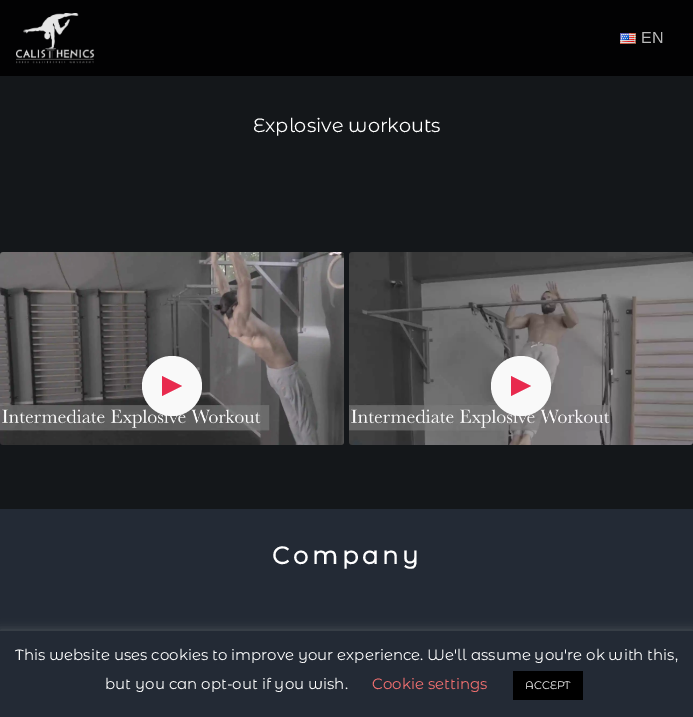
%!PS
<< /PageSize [693 717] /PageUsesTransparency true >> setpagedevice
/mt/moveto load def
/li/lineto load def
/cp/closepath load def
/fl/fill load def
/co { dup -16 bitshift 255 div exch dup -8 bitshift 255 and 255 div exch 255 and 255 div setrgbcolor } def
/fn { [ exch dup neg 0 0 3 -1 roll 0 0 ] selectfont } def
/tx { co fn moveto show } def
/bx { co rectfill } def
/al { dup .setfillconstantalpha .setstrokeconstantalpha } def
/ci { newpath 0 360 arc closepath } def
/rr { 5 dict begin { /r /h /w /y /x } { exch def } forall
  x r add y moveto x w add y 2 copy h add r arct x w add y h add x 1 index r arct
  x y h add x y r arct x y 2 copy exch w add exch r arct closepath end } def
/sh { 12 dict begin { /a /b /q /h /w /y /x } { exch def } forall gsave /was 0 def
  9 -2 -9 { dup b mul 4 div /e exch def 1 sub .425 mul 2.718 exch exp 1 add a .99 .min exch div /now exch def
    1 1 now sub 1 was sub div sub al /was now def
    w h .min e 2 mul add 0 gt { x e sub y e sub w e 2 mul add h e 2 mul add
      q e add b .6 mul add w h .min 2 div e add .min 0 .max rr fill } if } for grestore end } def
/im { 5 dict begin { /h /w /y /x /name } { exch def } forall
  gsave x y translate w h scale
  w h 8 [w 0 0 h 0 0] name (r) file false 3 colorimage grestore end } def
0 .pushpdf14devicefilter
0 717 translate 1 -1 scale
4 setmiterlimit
0 0 693 717 16#14171A bx
0 0 693 76 16#020203 bx
(media/1.raw) 16 13 79 51 im
(media/2.raw) 620 33 16 11 im
(media/3.raw) 0 252 344 193 im
16#000000 co
149 363 46 46 23 5 .3 sh
16#F9F9F9 co
172 386 30 ci fl
16#E82A4E co
162 396 mt 162 376 li 182 386 li cp fl
(media/4.raw) 349 252 344 193 im
16#000000 co
498 363 46 46 23 5 .3 sh
16#F9F9F9 co
521 386 30 ci fl
16#E82A4E co
511 396 mt 511 376 li 531 386 li cp fl
0 509 693 122 16#232A35 bx
16#ACABAB co
0 630 693 86 0 5 .3 sh
0 631 693 86 16#232A35 bx
513 671 70 29 16#000000 bx
(ΕΝ) 641 43 /LiberationSans-Regular 16 16#BABABA tx
(Explosive workouts) 253 132 /MontserratAlternates-Regular 19.25 16#FFFFFF tx
/MontserratAlternates-Bold 24.25 fn
272 564 mt 3.75 0 (Company) ashow
(This website uses cookies to improve your experience. We'll assume you're ok with this,) 15 660 /MontserratAlternates-Regular 15 16#FFFFFF tx
(but you can opt-out if you wish.) 105 689 /MontserratAlternates-Regular 15 16#FFFFFF tx
(Cookie settings) 372 689 /MontserratAlternates-Regular 15 16#F47070 tx
(ACCEPT) 525 689 /MontserratAlternates-Regular 11 16#FFFFFF tx
.poppdf14devicefilter showpage
